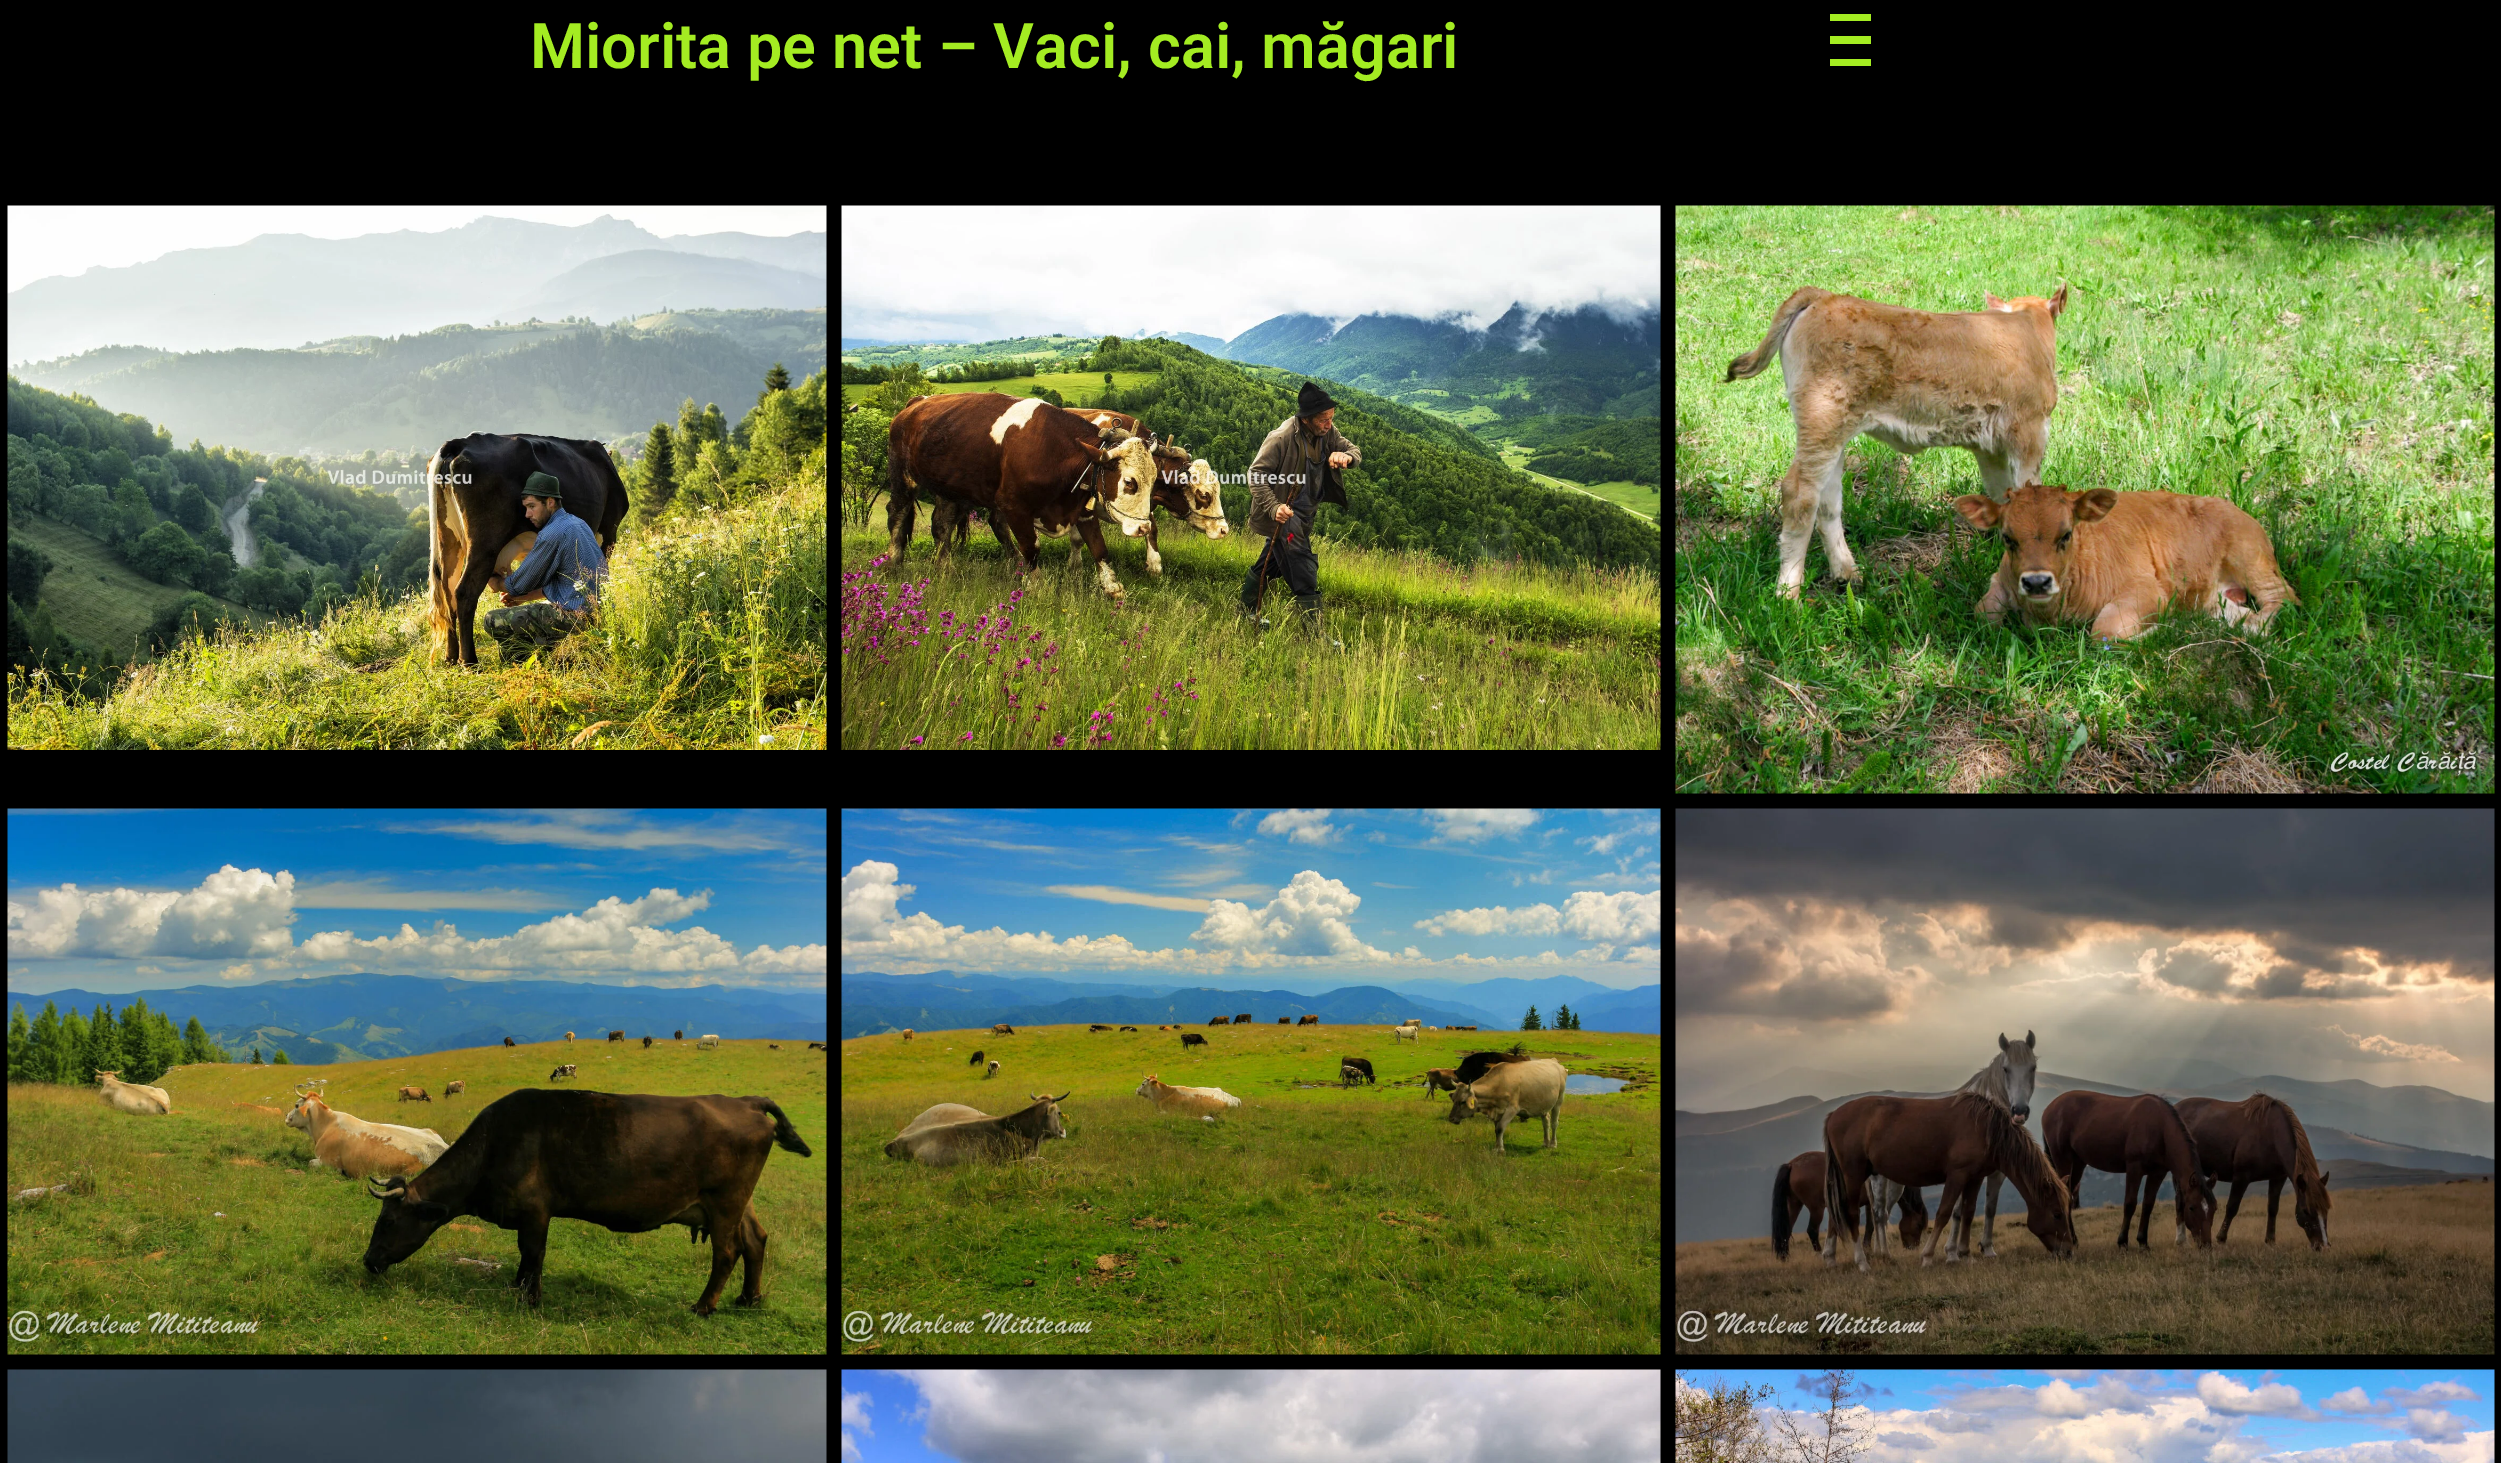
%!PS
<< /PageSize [2501 1463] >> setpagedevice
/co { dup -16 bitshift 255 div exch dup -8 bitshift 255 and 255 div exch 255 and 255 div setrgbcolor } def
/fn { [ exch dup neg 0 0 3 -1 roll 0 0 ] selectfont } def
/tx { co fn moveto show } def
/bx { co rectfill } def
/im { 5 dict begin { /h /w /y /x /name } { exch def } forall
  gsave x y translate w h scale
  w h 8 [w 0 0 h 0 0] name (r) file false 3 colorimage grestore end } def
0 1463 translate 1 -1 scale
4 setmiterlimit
0 0 2501 1463 16#000000 bx
1830 14 41 7 16#A4EC22 bx
1830 36 41 8 16#A4EC22 bx
1830 59 41 7 16#A4EC22 bx
(media/1.raw) 7 205 820 545 im
(media/2.raw) 841 205 820 545 im
(media/3.raw) 1675 205 820 589 im
(media/4.raw) 7 808 820 547 im
(media/5.raw) 841 808 820 547 im
(media/6.raw) 1675 808 820 547 im
(media/7.raw) 7 1369 820 94 im
(media/8.raw) 841 1369 820 94 im
(media/9.raw) 1675 1369 820 94 im
(Miorita pe net – Vaci, cai, măgari) 530 68 /Roboto-SemiBold 63 16#A4EC22 tx
showpage
